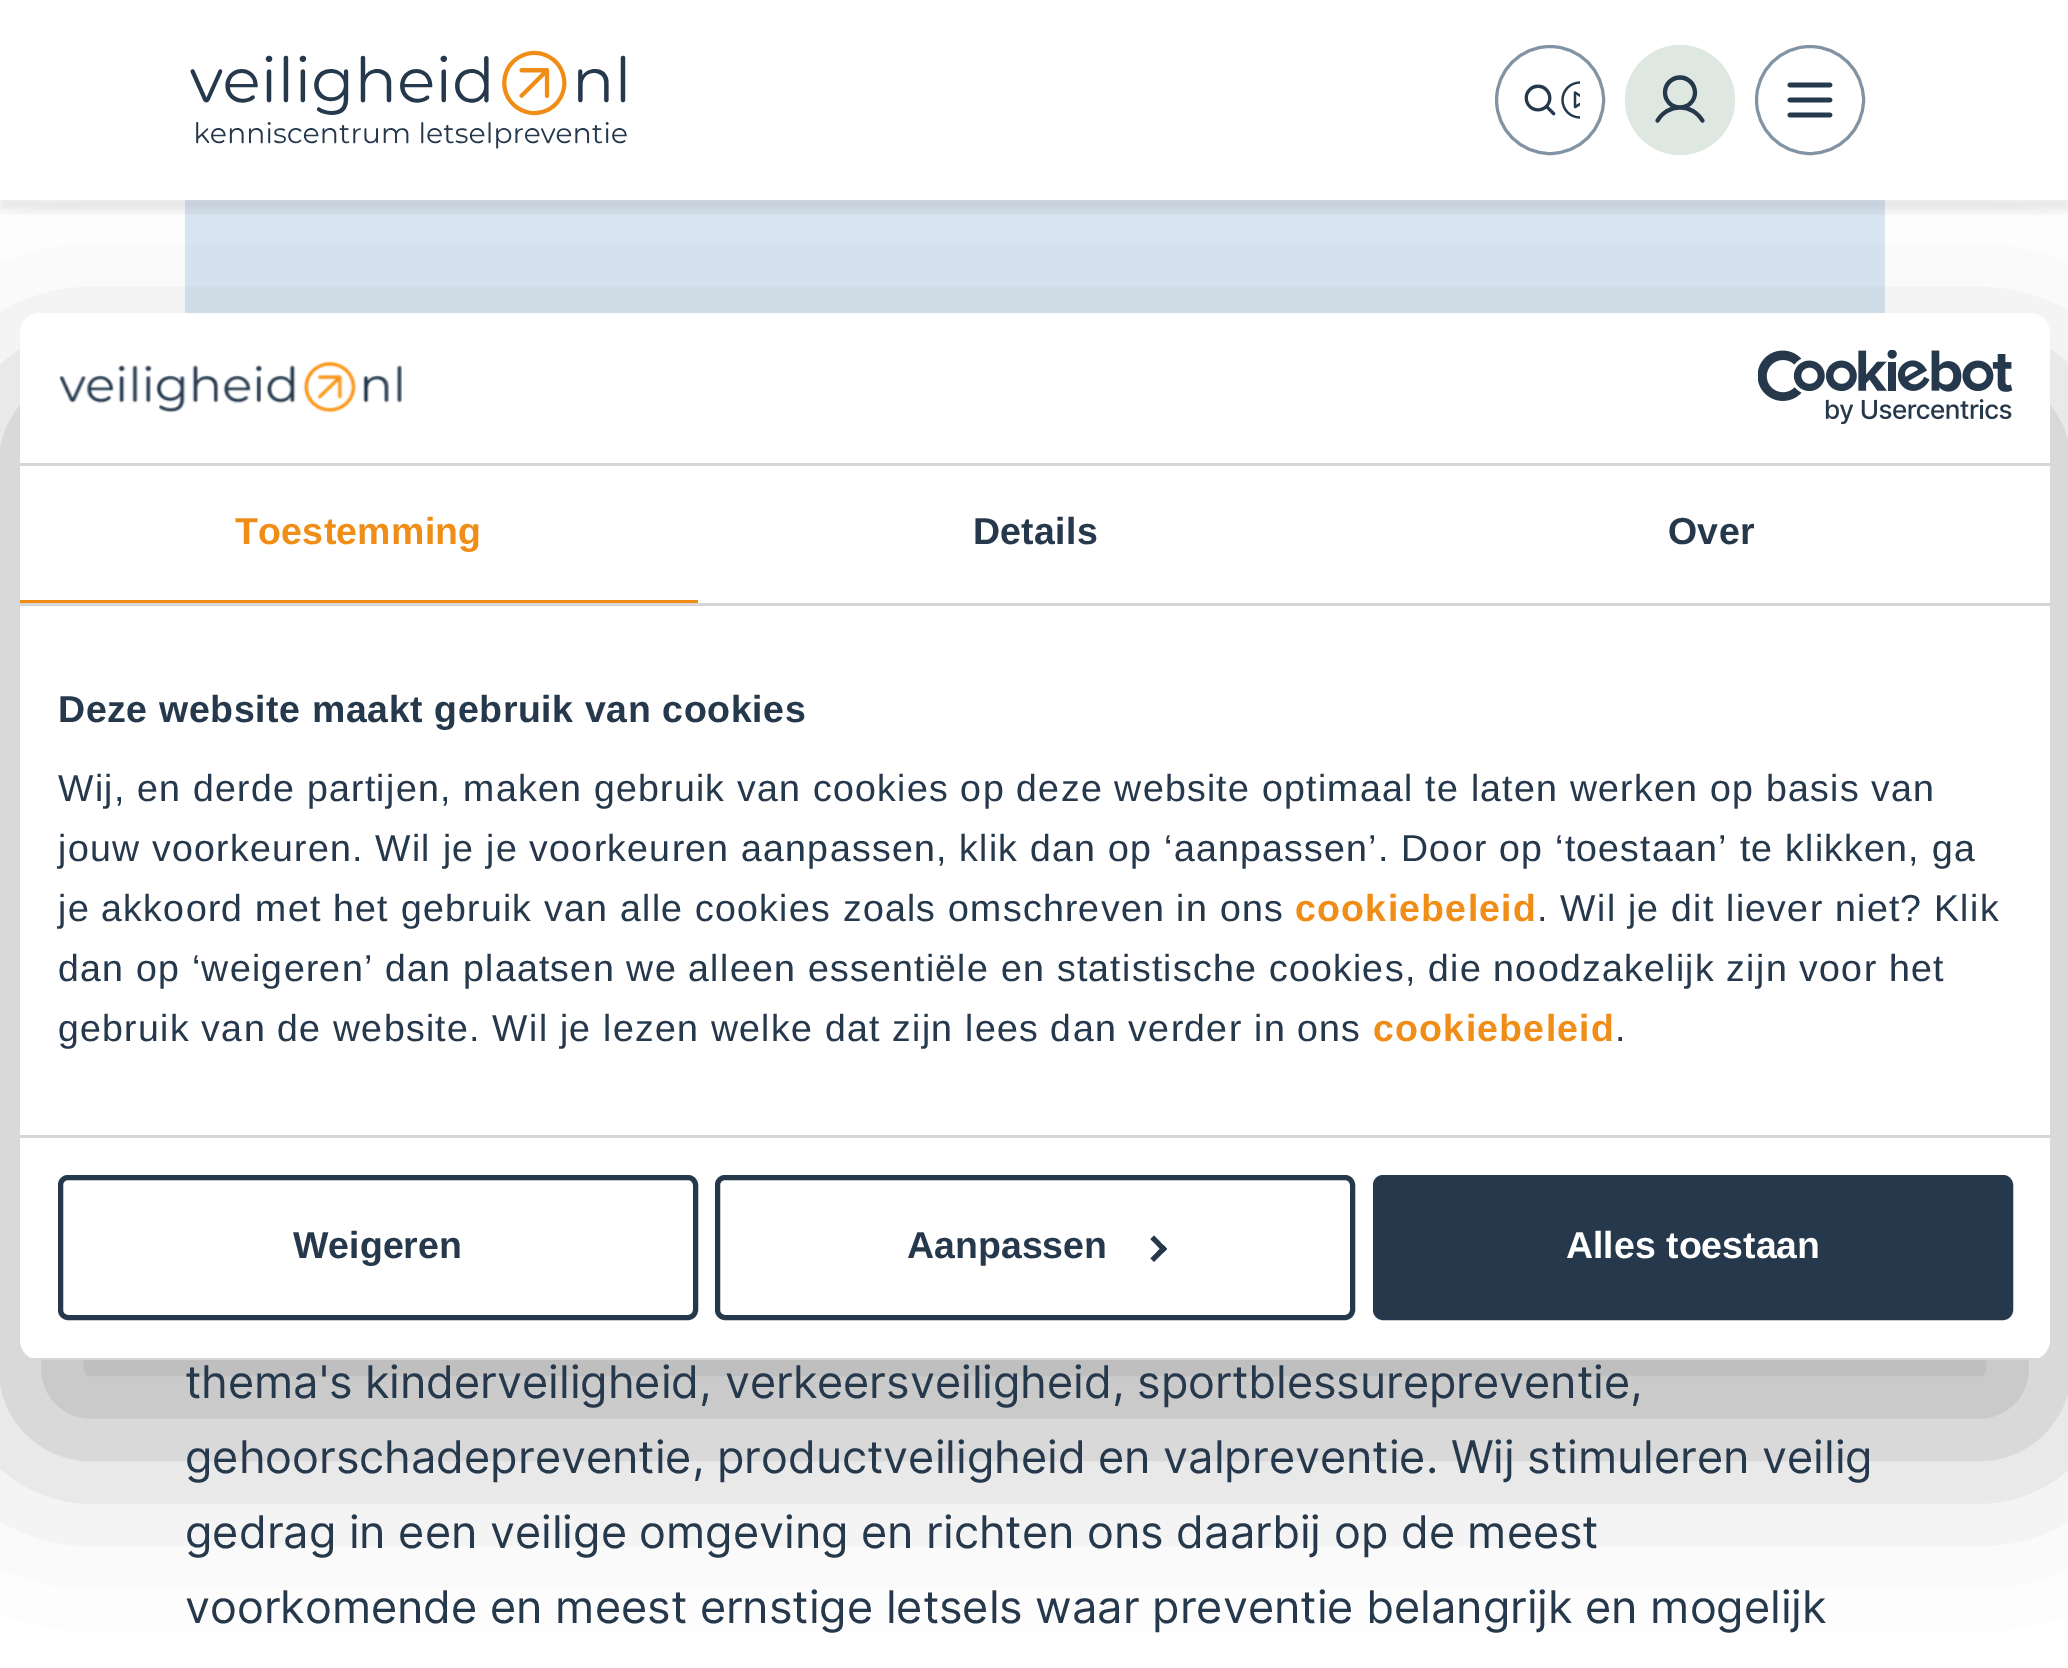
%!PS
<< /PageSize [2068 1668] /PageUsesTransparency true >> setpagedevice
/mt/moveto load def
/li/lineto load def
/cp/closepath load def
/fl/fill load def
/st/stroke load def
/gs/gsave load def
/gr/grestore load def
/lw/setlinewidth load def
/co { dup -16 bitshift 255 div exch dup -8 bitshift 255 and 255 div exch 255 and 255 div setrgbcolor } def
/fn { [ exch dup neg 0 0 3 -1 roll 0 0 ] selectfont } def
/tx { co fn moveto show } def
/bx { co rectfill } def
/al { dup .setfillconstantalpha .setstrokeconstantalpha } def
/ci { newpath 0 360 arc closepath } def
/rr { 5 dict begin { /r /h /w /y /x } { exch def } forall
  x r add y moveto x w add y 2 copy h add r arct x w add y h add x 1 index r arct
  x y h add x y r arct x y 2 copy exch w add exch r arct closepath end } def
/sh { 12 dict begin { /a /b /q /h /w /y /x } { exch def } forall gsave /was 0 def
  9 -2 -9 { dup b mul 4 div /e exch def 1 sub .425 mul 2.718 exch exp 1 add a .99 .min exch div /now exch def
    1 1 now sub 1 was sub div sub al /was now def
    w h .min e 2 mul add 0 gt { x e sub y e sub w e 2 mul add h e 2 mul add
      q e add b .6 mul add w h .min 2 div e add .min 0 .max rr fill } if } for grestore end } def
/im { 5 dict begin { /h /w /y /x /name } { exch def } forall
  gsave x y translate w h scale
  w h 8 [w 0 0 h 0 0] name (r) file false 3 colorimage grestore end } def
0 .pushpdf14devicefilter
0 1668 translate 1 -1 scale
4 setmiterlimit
0 0 2068 1668 16#FFFFFF bx
(media/3.raw) 190 50 437 99 im
16#8294A3 co
3 lw
1550 100 53.5 ci st
16#DEE7E0 co
1680 100 55 ci fl
16#8294A3 co
1810 100 53.5 ci st
185 200 1700 113 16#DAE6F1 bx
16#000000 co
20 393 2030 1047 20 85 .3 sh
16#FFFFFF co
20 313 2030 1047 20 rr fl
20 463 2030 3 16#D6D6D6 bx
(media/1.raw) 59 361 343 52 im
(media/2.raw) 1758 350 255 75 im
20 603 2030 3 16#D6D6D6 bx
20 600 678 3 16#F08D17 bx
20 1135 2030 3 16#D6D6D6 bx
gs
20 313 2030 1047 20 rr clip newpath
31 1358 2008 2 16#D6D6D6 bx
gr
16#26384B co
5 lw
60.5 1177.5 635 140 7.5 rr st
717.5 1177.5 635 140 7.5 rr st
1154 1235.5 mt 1167 1249 li 1163.5 1252.5 li 1150.5 1239 li cp fl
1163.5 1245 mt 1167 1249 li 1154 1262 li 1150.5 1258.5 li cp fl
1375.5 1177.5 635 140 7.5 rr gs fl gr
st
(media/4.raw) 1524 81 56 38 im
(media/5.raw) 1655 75 50 48 im
(media/6.raw) 1787 82 46 36 im
gs
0 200 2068 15 rectclip
16#000000 co
0 198 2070 12 0 6 .1 sh
gr
/LiberationSans-Bold 37.5 fn
16#F08D17 co
235 544 mt .25 0 (Toestemming) ashow
16#26384B co
973 544 mt .25 0 (Details) ashow
1668 544 mt .25 0 (Over) ashow
58 722 mt .6 0 (Deze website maakt gebruik van cookies) ashow
/LiberationSans-Regular 37.5 fn
58 801 mt 1.25 0 (Wij, en derde partijen, maken gebruik van cookies op deze website optimaal te laten werken op basis van) ashow
58 861 mt 1.25 0 (jouw voorkeuren. Wil je je voorkeuren aanpassen, klik dan op ‘aanpassen’. Door op ‘toestaan’ te klikken, ga) ashow
58 921 mt 1.25 0 (je akkoord met het gebruik van alle cookies zoals omschreven in ons) ashow
/LiberationSans-Bold 37.5 fn
16#F08D17 co
1295 921 mt 1.25 0 (cookiebeleid) ashow
/LiberationSans-Regular 37.5 fn
16#26384B co
1537 921 mt 1.25 0 (. Wil je dit liever niet? Klik) ashow
58 981 mt 1.25 0 (dan op ‘weigeren’ dan plaatsen we alleen essentiële en statistische cookies, die noodzakelijk zijn voor het) ashow
58 1041 mt 1.25 0 (gebruik van de website. Wil je lezen welke dat zijn lees dan verder in ons) ashow
/LiberationSans-Bold 37.5 fn
16#F08D17 co
1373 1041 mt 1.25 0 (cookiebeleid) ashow
/LiberationSans-Regular 37.5 fn
16#26384B co
1615 1041 mt 1.25 0 (.) ashow
(Weigeren) 293 1258 /LiberationSans-Bold 37.5 16#26384B tx
(Aanpassen) 907 1258 /LiberationSans-Bold 37.5 16#26384B tx
(Alles toestaan) 1566 1258 /LiberationSans-Bold 37.5 16#FFFFFF tx
(thema's kinderveiligheid, verkeersveiligheid, sportblessurepreventie,) 185 1398 /Inter-Regular 45 16#26384B tx
(gehoorschadepreventie, productveiligheid en valpreventie. Wij stimuleren veilig) 185 1473 /Inter-Regular 45 16#26384B tx
(gedrag in een veilige omgeving en richten ons daarbij op de meest) 185 1548 /Inter-Regular 45 16#26384B tx
(voorkomende en meest ernstige letsels waar preventie belangrijk en mogelijk) 185 1623 /Inter-Regular 45 16#26384B tx
.poppdf14devicefilter showpage
